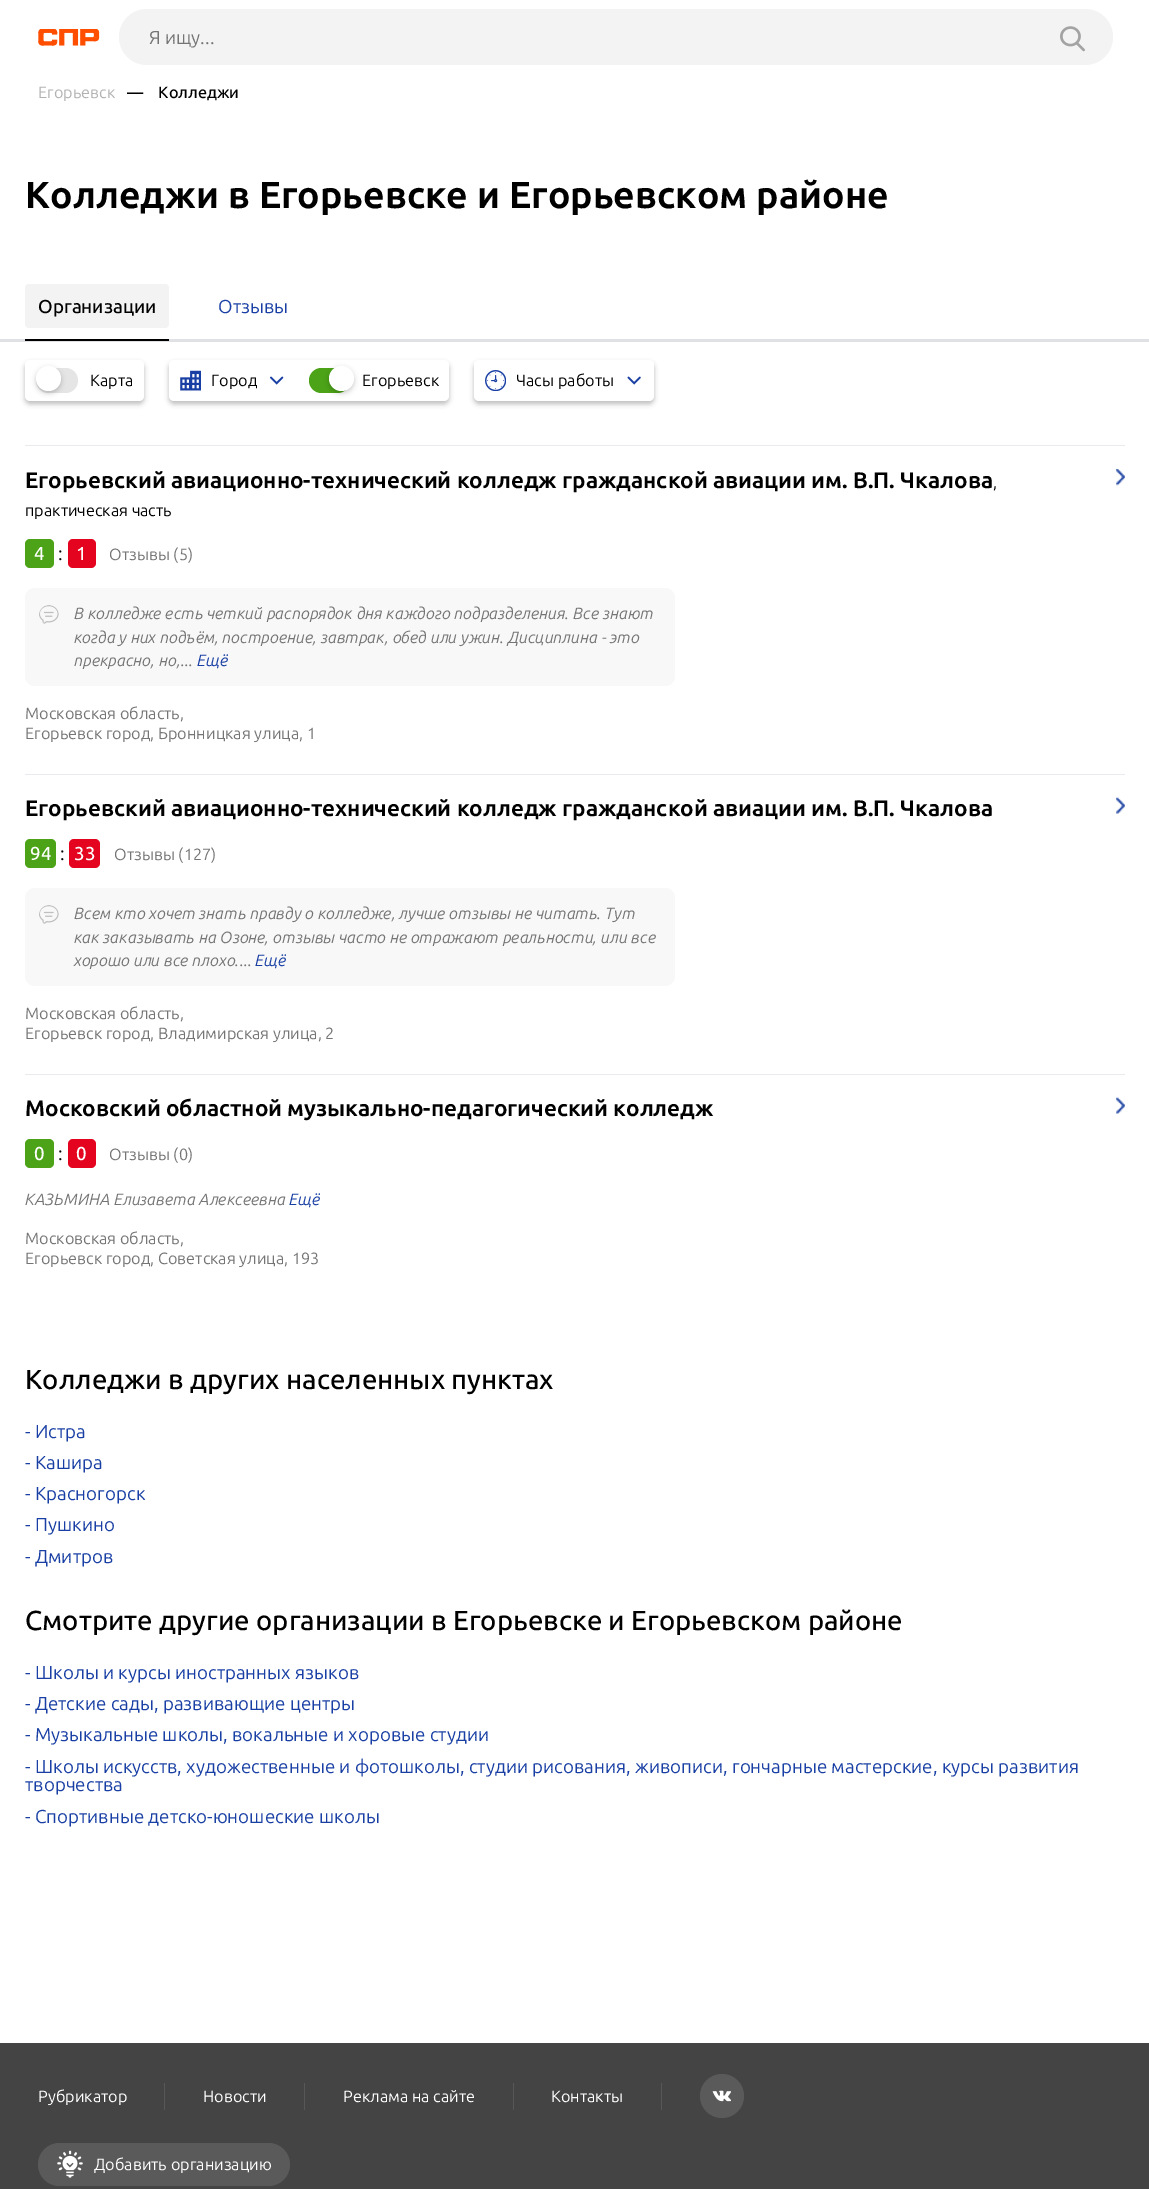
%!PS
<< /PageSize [1149 2189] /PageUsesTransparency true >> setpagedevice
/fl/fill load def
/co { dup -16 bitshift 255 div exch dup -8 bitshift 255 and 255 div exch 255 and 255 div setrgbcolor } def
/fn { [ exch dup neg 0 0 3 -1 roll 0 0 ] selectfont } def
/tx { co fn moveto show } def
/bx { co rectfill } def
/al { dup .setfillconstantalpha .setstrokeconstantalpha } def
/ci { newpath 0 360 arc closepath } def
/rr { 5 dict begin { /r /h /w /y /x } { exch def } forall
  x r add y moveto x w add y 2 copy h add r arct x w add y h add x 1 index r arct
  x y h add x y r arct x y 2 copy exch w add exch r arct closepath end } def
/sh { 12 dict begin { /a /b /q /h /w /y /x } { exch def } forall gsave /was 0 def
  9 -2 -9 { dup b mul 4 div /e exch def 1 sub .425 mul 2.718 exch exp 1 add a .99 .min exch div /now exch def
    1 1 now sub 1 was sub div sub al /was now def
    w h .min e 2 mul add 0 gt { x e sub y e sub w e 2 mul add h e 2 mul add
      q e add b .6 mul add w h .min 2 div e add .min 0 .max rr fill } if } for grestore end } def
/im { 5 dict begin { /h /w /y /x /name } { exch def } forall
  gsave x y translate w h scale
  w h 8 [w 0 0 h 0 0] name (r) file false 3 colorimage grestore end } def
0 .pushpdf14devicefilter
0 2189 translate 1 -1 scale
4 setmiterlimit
0 0 1149 2189 16#FFFFFF bx
(media/1.raw) 38 29 62 17 im
16#F3F3F3 co
119 9 994 56 28 rr fl
(media/2.raw) 1060 26 25 26 im
0 339 1149 3 16#DFE1E5 bx
25 339 144 2 16#000000 bx
16#F3F3F3 co
25 284 144 44 4 rr fl
16#000000 co
25 363 119 41 5 2.5 .25 sh
16#FFFFFF co
25 360 119 41 5 rr fl
16#E5E5E5 co
36 368 42 25 12.5 rr fl
16#000000 co
36 368 25 25 12.5 2.5 .2 sh
16#FFFFFF co
48.5 378.5 12.5 ci fl
16#000000 co
169 363 280 41 5 2.5 .25 sh
16#FFFFFF co
169 360 280 41 5 rr fl
(media/3.raw) 180 370 21 21 im
(media/4.raw) 270 376 14 9 im
16#4CA317 co
309 368 41 25 12.5 rr fl
16#000000 co
329 368 25 25 12.5 2.5 .2 sh
16#FFFFFF co
341.5 378.5 12.5 ci fl
16#000000 co
474 363 180 41 5 2.5 .25 sh
16#FFFFFF co
474 360 180 41 5 rr fl
(media/5.raw) 485 370 21 21 im
(media/6.raw) 627 376 14 9 im
25 445 1100 1 16#E8EAEE bx
16#4CA317 co
25 539 29 29 5 rr fl
16#E4041F co
68 539 28 29 5 rr fl
16#F8F8F8 co
25 588 650 98 10 rr fl
(media/7.raw) 39 605 20 19 im
(media/8.raw) 1116 469 9 17 im
25 774 1100 1 16#E8EAEE bx
16#4CA317 co
25 839 31 29 5 rr fl
16#E4041F co
69 839 31 29 5 rr fl
16#F8F8F8 co
25 888 650 98 10 rr fl
(media/7.raw) 39 905 20 19 im
(media/9.raw) 1116 797 9 17 im
25 1074 1100 1 16#E8EAEE bx
16#4CA317 co
25 1139 29 29 5 rr fl
16#E4041F co
68 1139 28 29 5 rr fl
(media/9.raw) 1116 1097 9 17 im
0 2043 1149 146 16#444444 bx
164 2083 1 27 16#575757 bx
304 2083 1 27 16#575757 bx
513 2083 1 27 16#575757 bx
661 2083 1 27 16#575757 bx
16#5A5A5A co
722 2096 22 ci fl
(media/10.raw) 712 2090 19 12 im
38 2143 252 43 21.5 rr fl
(media/11.raw) 57 2150 26 28 im
(Я ищу...) 149 44 /Ubuntu-Regular 18.75 16#757575 tx
(Егорьевск) 38 98 /Ubuntu-Regular 16.25 16#B3B2B2 tx
(—    Колледжи) 127 98 /Ubuntu-Medium 16.25 16#000000 tx
(Колледжи в Егорьевске и Егорьевском районе) 25 208 /Ubuntu-Bold 37.5 16#000000 tx
(Организации) 38 313 /Ubuntu-Medium 18.75 16#000000 tx
(Отзывы) 218 313 /Ubuntu-Regular 18.75 16#193FA4 tx
(Карта) 90 386 /Ubuntu-Regular 16.25 16#000000 tx
(Город) 211 386 /Ubuntu-Regular 16.25 16#000000 tx
(Егорьевск) 362 386 /Ubuntu-Regular 16.25 16#000000 tx
(Часы работы) 516 386 /Ubuntu-Regular 16.25 16#000000 tx
(Егорьевский авиационно-технический колледж гражданской авиации им. В.П. Чкалова) 25 488 /Ubuntu-Bold 22.5 16#000000 tx
(,) 993 488 /Ubuntu-Regular 16.25 16#000000 tx
(практическая часть) 25 516 /Ubuntu-Regular 16.25 16#000000 tx
(4) 34 560 /Ubuntu-Medium 18.75 16#FFFFFF tx
(:) 58 560 /Ubuntu-Regular 18.75 16#000000 tx
(1) 76 560 /Ubuntu-Medium 18.75 16#FFFFFF tx
(Отзывы \(5\)) 109 560 /Ubuntu-Regular 16.25 16#757575 tx
(В колледже есть четкий распорядок дня каждого подразделения. Все знают) 74 619 /Ubuntu-Italic 16.25 16#757575 tx
(когда у них подъём, построение, завтрак, обед или ужин. Дисциплина - это) 74 643 /Ubuntu-Italic 16.25 16#757575 tx
(прекрасно, но,...) 74 666 /Ubuntu-Italic 16.25 16#757575 tx
(Ещё) 197 666 /Ubuntu-Italic 16.25 16#193FA4 tx
(Московская область,) 25 719 /Ubuntu-Regular 16.25 16#757575 tx
(Егорьевск город, Бронницкая улица, 1) 25 739 /Ubuntu-Regular 16.25 16#757575 tx
(Егорьевский авиационно-технический колледж гражданской авиации им. В.П. Чкалова) 25 816 /Ubuntu-Bold 22.5 16#000000 tx
(94) 30 860 /Ubuntu-Medium 18.75 16#FFFFFF tx
(:) 60 860 /Ubuntu-Regular 18.75 16#000000 tx
(33) 74 860 /Ubuntu-Medium 18.75 16#FFFFFF tx
(Отзывы \(127\)) 114 860 /Ubuntu-Regular 16.25 16#757575 tx
(Всем кто хочет знать правду о колледже, лучше отзывы не читать. Тут) 74 919 /Ubuntu-Italic 16.25 16#757575 tx
(как заказывать на Озоне, отзывы часто не отражают реальности, или все) 74 943 /Ubuntu-Italic 16.25 16#757575 tx
(хорошо или все плохо....) 74 966 /Ubuntu-Italic 16.25 16#757575 tx
(Ещё) 255 966 /Ubuntu-Italic 16.25 16#193FA4 tx
(Московская область,) 25 1019 /Ubuntu-Regular 16.25 16#757575 tx
(Егорьевск город, Владимирская улица, 2) 25 1039 /Ubuntu-Regular 16.25 16#757575 tx
(Московский областной музыкально-педагогический колледж) 25 1116 /Ubuntu-Bold 22.5 16#000000 tx
(0) 34 1160 /Ubuntu-Medium 18.75 16#FFFFFF tx
(:) 58 1160 /Ubuntu-Regular 18.75 16#000000 tx
(0) 76 1160 /Ubuntu-Medium 18.75 16#FFFFFF tx
(Отзывы \(0\)) 109 1160 /Ubuntu-Regular 16.25 16#757575 tx
(КАЗЬМИНА Елизавета Алексеевна) 25 1205 /Ubuntu-Italic 16.25 16#757575 tx
(Ещё) 289 1205 /Ubuntu-Italic 16.25 16#193FA4 tx
(Московская область,) 25 1244 /Ubuntu-Regular 16.25 16#757575 tx
(Егорьевск город, Советская улица, 193) 25 1264 /Ubuntu-Regular 16.25 16#757575 tx
(Колледжи в других населенных пунктах) 25 1389 /Ubuntu-Medium 27.5 16#000000 tx
(- Истра) 25 1438 /Ubuntu-Regular 18.75 16#193FA4 tx
(- Кашира) 25 1469 /Ubuntu-Regular 18.75 16#193FA4 tx
(- Красногорск) 25 1500 /Ubuntu-Regular 18.75 16#193FA4 tx
(- Пушкино) 25 1531 /Ubuntu-Regular 18.75 16#193FA4 tx
(- Дмитров) 25 1563 /Ubuntu-Regular 18.75 16#193FA4 tx
(Смотрите другие организации в Егорьевске и Егорьевском районе) 25 1630 /Ubuntu-Medium 27.5 16#000000 tx
(- Школы и курсы иностранных языков) 25 1679 /Ubuntu-Regular 18.75 16#193FA4 tx
(- Детские сады, развивающие центры) 25 1710 /Ubuntu-Regular 18.75 16#193FA4 tx
(- Музыкальные школы, вокальные и хоровые студии) 25 1741 /Ubuntu-Regular 18.75 16#193FA4 tx
(- Школы искусств, художественные и фотошколы, студии рисования, живописи, гончарные мастерские, курсы развития) 25 1773 /Ubuntu-Regular 18.75 16#193FA4 tx
(творчества) 25 1791 /Ubuntu-Regular 18.75 16#193FA4 tx
(- Спортивные детско-юношеские школы) 25 1823 /Ubuntu-Regular 18.75 16#193FA4 tx
(Рубрикатор) 38 2102 /Ubuntu-Regular 16.25 16#FFFFFF tx
(Новости) 203 2102 /Ubuntu-Regular 16.25 16#FFFFFF tx
(Реклама на сайте) 343 2102 /Ubuntu-Regular 16.25 16#FFFFFF tx
(Контакты) 551 2102 /Ubuntu-Regular 16.25 16#FFFFFF tx
(Добавить организацию) 94 2170 /Ubuntu-Regular 16.25 16#FFFFFF tx
.poppdf14devicefilter showpage
